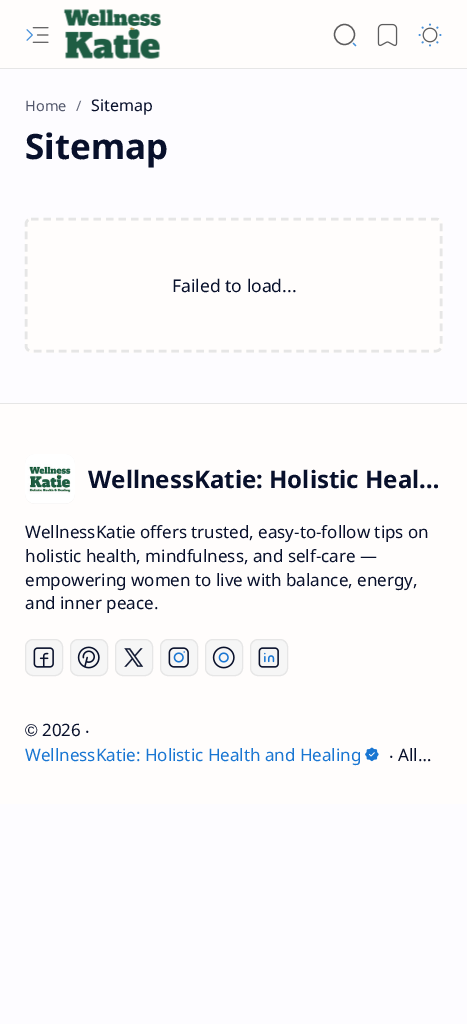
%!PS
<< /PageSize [467 1024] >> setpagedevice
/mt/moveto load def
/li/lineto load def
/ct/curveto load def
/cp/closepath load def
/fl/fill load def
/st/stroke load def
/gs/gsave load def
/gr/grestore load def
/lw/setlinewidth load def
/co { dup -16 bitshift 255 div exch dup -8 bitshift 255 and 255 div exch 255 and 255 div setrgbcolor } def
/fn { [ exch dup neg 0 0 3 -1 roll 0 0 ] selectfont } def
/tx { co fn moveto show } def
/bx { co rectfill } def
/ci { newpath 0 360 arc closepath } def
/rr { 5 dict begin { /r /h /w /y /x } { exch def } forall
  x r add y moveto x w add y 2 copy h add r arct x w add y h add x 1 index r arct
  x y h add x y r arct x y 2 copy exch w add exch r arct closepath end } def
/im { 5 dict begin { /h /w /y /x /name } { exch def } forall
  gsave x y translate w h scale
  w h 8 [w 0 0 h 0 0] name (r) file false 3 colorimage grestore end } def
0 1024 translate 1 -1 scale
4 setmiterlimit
0 0 467 1024 16#FDFCFF bx
0 0 467 68 16#FFFDFC bx
(media/1.raw) 26 27 23 16 im
(media/2.raw) 63 9 98 50 im
16#5D5C5D co
1.3 lw
344.5 34.5 10 ci st
16#4791DA co
1 setlinecap
1 setlinejoin
355.5 45.5 mt 353.5 43.5 li st
(media/3.raw) 377 23 21 24 im
(media/4.raw) 418 23 24 24 im
0 68 467 1 16#E6E6E6 bx
16#FFFDFC co
25 218 418 135 6 rr fl
16#E6E6E6 co
2.5 lw
0 setlinecap
0 setlinejoin
[7.5 5] 0 setdash
31 219 mt 436 219 li 439 219 441 221 441 224 ct 441 346 li 441 349 439 351 436 351 ct 31 351 li 28.5 351 26 349 26 346 ct 26 224 li 26 221 28.5 219 31 219 ct cp st
0 404 467 400 16#FFFDFC bx
0 403 467 1 16#E6E6E6 bx
16#F2F0EF co
25 454 50 50 10 rr fl
(media/5.raw) 25 454 50 50 im
16#F6F6F6 co
25.5 639.5 37 36 7.5 rr gs fl gr
16#E6E6E6 co
1 lw
[] 0 setdash
st
(media/6.raw) 33 647 21 21 im
16#F6F6F6 co
70.5 639.5 37 36 7.5 rr gs fl gr
16#E6E6E6 co
st
(media/7.raw) 77 646 23 23 im
16#F6F6F6 co
115.5 639.5 37 36 7.5 rr gs fl gr
16#E6E6E6 co
st
(media/8.raw) 124 648 20 19 im
16#F6F6F6 co
160.5 639.5 37 36 7.5 rr gs fl gr
16#E6E6E6 co
st
(media/9.raw) 168 647 21 21 im
16#F6F6F6 co
205.5 639.5 37 36 7.5 rr gs fl gr
16#E6E6E6 co
st
(media/10.raw) 212 646 23 23 im
16#F6F6F6 co
250.5 639.5 37 36 7.5 rr gs fl gr
16#E6E6E6 co
st
(media/11.raw) 258 647 21 21 im
(media/12.raw) 365 747 14 15 im
(Home) 25 111 /NotoSans-Regular 14.5 16#52576B tx
(/) 76 111 /NotoSans-Regular 14.5 16#6A6E80 tx
(Sitemap) 91 111 /NotoSans-Regular 16 16#08102B tx
(Sitemap) 25 159 /NotoSans-Bold 35 16#08102B tx
(Failed to load...) 172 292 /NotoSans-Regular 17.5 16#08102B tx
gs
88 464 355 31 rectclip
(WellnessKatie: Holistic Heal…) 88 488 /NotoSans-Bold 24 16#08102B tx
gr
(WellnessKatie offers trusted, easy-to-follow tips on) 25 538 /NotoSans-Regular 17 16#08102B tx
(holistic health, mindfulness, and self-care —) 25 562 /NotoSans-Regular 17 16#08102B tx
(empowering women to live with balance, energy,) 25 586 /NotoSans-Regular 17 16#08102B tx
(and inner peace.) 25 609 /NotoSans-Regular 17 16#08102B tx
(©) 25 736 /LiberationSans-Regular 17 16#08102B tx
(2026 ‧) 42 736 /NotoSans-Regular 17 16#08102B tx
(WellnessKatie: Holistic Health and Healing) 25 761 /NotoSans-Regular 17 16#1976D2 tx
(‧ All…) 389 761 /NotoSans-Regular 17 16#08102B tx
showpage
